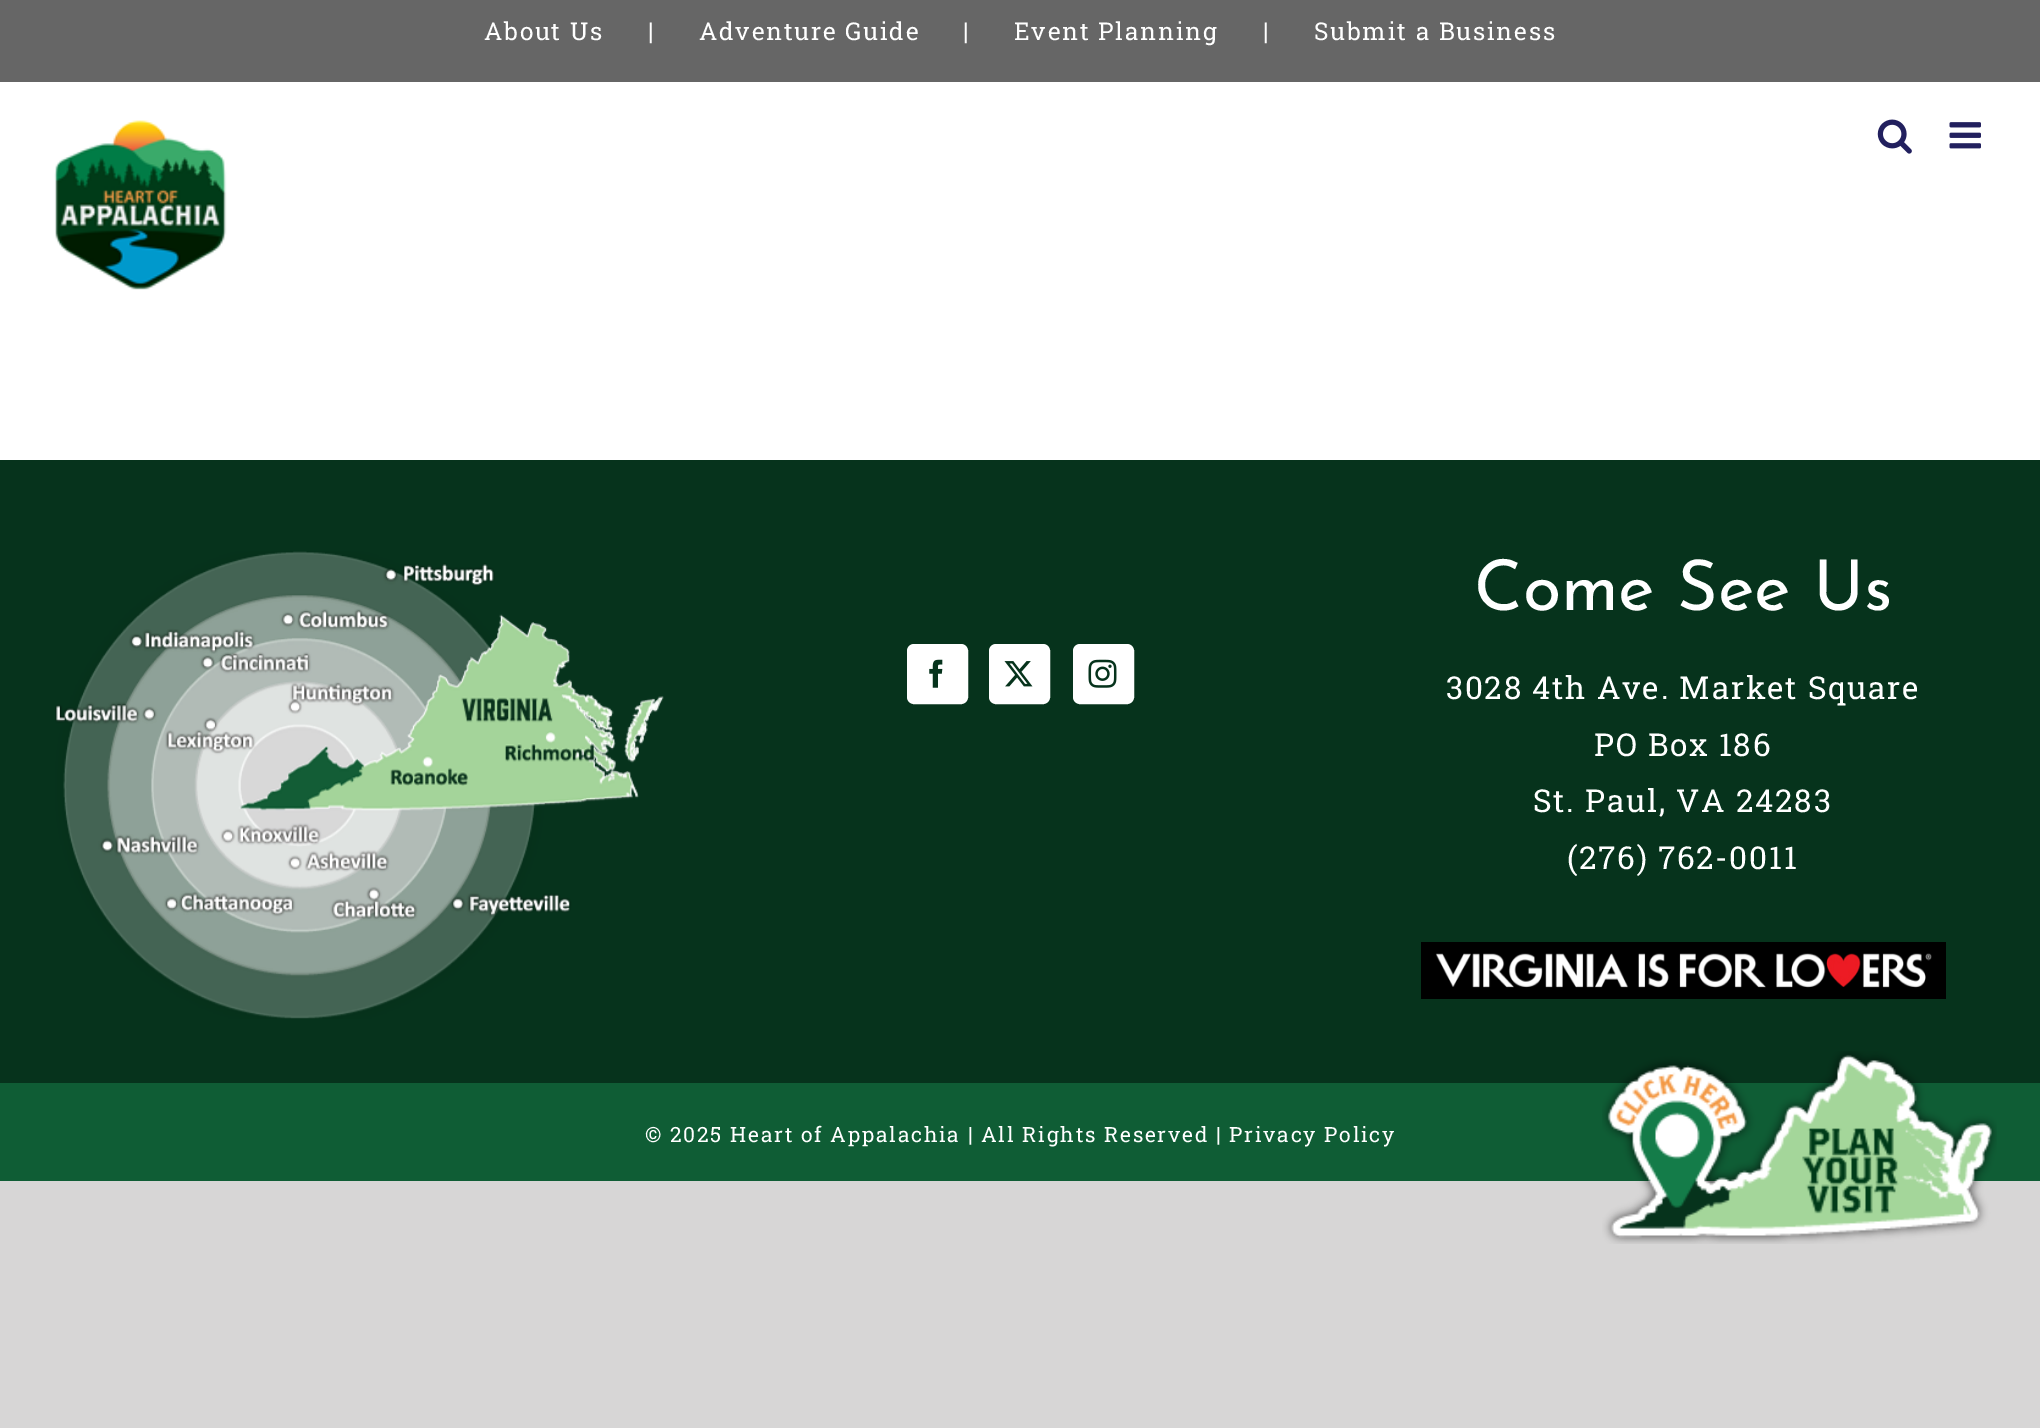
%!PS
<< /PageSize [2040 1428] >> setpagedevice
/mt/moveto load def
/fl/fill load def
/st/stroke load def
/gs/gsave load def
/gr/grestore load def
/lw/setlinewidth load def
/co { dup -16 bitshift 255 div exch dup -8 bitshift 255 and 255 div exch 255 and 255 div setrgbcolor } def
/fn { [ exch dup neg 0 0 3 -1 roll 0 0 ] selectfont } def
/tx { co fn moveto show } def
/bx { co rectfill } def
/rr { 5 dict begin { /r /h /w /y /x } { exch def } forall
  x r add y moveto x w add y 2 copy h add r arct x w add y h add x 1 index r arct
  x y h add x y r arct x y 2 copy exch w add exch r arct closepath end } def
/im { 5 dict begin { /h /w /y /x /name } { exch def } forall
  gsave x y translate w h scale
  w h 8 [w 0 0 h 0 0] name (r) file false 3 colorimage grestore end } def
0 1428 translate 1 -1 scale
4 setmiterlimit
0 0 2040 1428 16#D7D6D6 bx
0 0 2040 82 16#666666 bx
0 82 2040 378 16#FFFFFF bx
(media/1.raw) 54 120 173 170 im
(media/2.raw) 1877 119 35 35 im
(media/3.raw) 1949 122 32 27 im
0 460 2040 623 16#06331C bx
(media/4.raw) 55 551 609 468 im
16#FFFFFF co
908 645 59 58 6 rr gs fl gr
2 lw
st
(media/5.raw) 929 659 14 29 im
990 645 59 58 6 rr gs fl gr
st
(media/6.raw) 1004 661 29 26 im
1074 645 59 58 6 rr gs fl gr
st
(media/7.raw) 1088 659 29 29 im
(media/8.raw) 1421 942 525 57 im
0 1083 2040 98 16#0F5D35 bx
(media/9.raw) 1602 1051 395 193 im
/RobotoSlab-Regular 24.5 fn
16#FFFFFF co
484 40 mt 1.75 0 (About Us) ashow
648 40 mt 1.75 0 (|) ashow
699 40 mt 1.75 0 (Adventure Guide) ashow
963 40 mt 1.75 0 (|) ashow
1014 40 mt 1.75 0 (Event Planning) ashow
1263 40 mt 1.75 0 (|) ashow
1314 40 mt 1.75 0 (Submit a Business) ashow
(Come See Us) 1474 610 /JosefinSans-Thin 70 16#FFFFFF tx
/RobotoSlab-Regular 31.5 fn
1446 699 mt 1.75 0 (3028 4th Ave. Market Square) ashow
1594 756 mt 1.75 0 (PO Box 186) ashow
1533 812 mt 1.75 0 (St. Paul, VA 24283) ashow
1567 869 mt 1.75 0 (\(276\) 762-0011) ashow
/RobotoSlab-Regular 21 fn
645 1142 mt 1.75 0 (© 2025 Heart of Appalachia | All Rights Reserved | Privacy Policy) ashow
showpage
